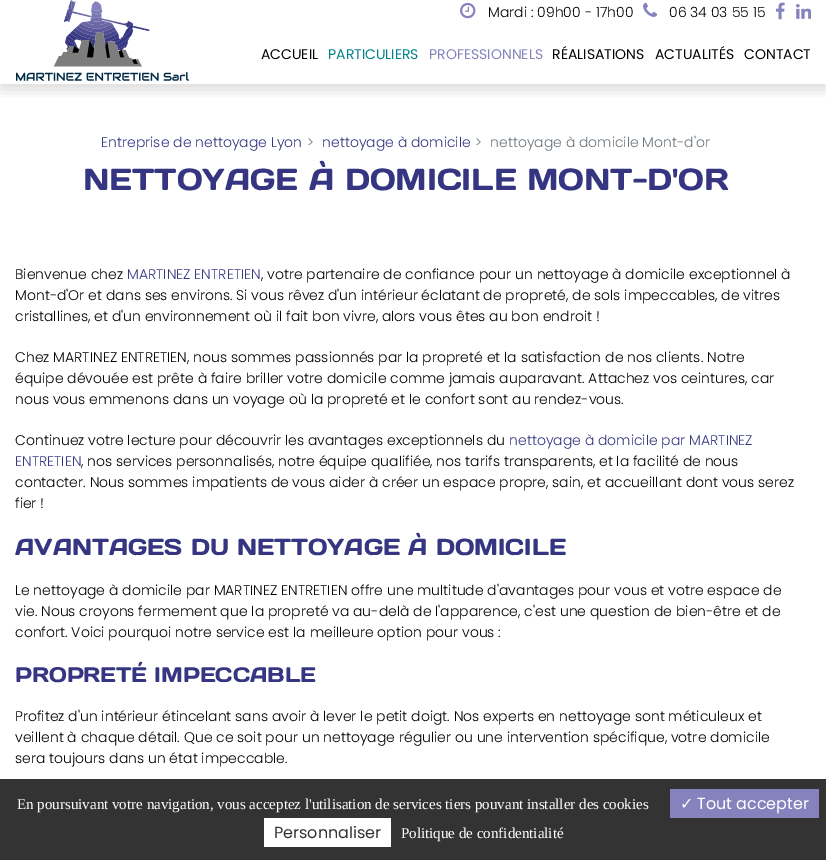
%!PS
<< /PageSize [826 860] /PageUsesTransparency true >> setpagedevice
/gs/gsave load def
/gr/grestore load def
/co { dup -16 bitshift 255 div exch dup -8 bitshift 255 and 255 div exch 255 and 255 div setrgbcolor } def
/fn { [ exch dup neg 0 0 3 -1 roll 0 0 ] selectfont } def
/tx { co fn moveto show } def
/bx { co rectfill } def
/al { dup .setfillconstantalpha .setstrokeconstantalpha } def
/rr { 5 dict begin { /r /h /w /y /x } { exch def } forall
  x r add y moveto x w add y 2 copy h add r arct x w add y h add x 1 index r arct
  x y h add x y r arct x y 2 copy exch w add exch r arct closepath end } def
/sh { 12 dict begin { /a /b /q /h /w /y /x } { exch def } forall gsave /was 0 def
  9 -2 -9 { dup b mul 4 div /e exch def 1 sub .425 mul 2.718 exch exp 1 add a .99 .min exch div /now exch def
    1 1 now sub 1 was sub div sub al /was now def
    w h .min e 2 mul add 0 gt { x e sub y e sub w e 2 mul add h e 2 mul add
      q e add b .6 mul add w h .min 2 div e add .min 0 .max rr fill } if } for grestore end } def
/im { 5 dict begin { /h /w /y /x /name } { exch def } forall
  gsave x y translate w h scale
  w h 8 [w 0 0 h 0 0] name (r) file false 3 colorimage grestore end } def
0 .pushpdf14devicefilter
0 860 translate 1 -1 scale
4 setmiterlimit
0 0 826 860 16#FFFFFF bx
gs
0 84 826 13 rectclip
16#000000 co
0 5 826 84 0 7.5 .15 sh
gr
(media/1.raw) 16 0 173 81 im
(media/2.raw) 460 2 16 17 im
(media/3.raw) 643 2 15 15 im
(media/4.raw) 775 2 10 18 im
(media/5.raw) 796 4 15 15 im
0 779 826 81 16#333333 bx
670 789 149 29 16#8582BD bx
264 818 127 29 16#FFFFFF bx
(Mardi : 09h00 - 17h00) 488 17 /Poppins-Light 14 16#000000 tx
(06 34 03 55 15) 669 17 /Poppins-Light 14 16#000000 tx
(ACCUEIL) 261 59 /Poppins-Regular 14 16#000000 tx
(PARTICULIERS) 328 59 /Poppins-Regular 14 16#00838E tx
(PROFESSIONNELS) 429 59 /Poppins-Regular 14 16#8582BD tx
(RÉALISATIONS) 552 59 /Poppins-Regular 14 16#000000 tx
(ACTUALITÉS) 655 59 /Poppins-Regular 14 16#000000 tx
(CONTACT) 744 59 /Poppins-Regular 14 16#000000 tx
(Entreprise de nettoyage Lyon) 101 147 /Poppins-Light 14 16#353582 tx
(>) 307 147 /Poppins-Light 14 16#6C757D tx
(nettoyage à domicile) 322 147 /Poppins-Light 14 16#353582 tx
(>) 475 147 /Poppins-Light 14 16#6C757D tx
(nettoyage à domicile Mont-d'or) 490 147 /Poppins-Light 14 16#6C757D tx
(NETTOYAGE À DOMICILE MONT-D'OR) 83 190 /DaysOne-Regular 30.4 16#353582 tx
(Bienvenue chez) 15 279 /Poppins-Light 14 16#000000 tx
(MARTINEZ ENTRETIEN) 127 279 /Poppins-Light 14 16#353582 tx
(, votre partenaire de confiance pour un nettoyage à domicile exceptionnel à) 261 279 /Poppins-Light 14 16#000000 tx
(Mont-d'Or et dans ses environs. Si vous rêvez d'un intérieur éclatant de propreté, de sols impeccables, de vitres) 15 300 /Poppins-Light 14 16#000000 tx
(cristallines, et d'un environnement où il fait bon vivre, alors vous êtes au bon endroit !) 15 321 /Poppins-Light 14 16#000000 tx
(Chez MARTINEZ ENTRETIEN, nous sommes passionnés par la propreté et la satisfaction de nos clients. Notre) 15 362 /Poppins-Light 14 16#000000 tx
(équipe dévouée est prête à faire briller votre domicile comme jamais auparavant. Attachez vos ceintures, car) 15 383 /Poppins-Light 14 16#000000 tx
(nous vous emmenons dans un voyage où la propreté et le confort sont au rendez-vous.) 15 404 /Poppins-Light 14 16#000000 tx
(Continuez votre lecture pour découvrir les avantages exceptionnels du) 15 445 /Poppins-Light 14 16#000000 tx
(nettoyage à domicile par MARTINEZ) 509 445 /Poppins-Light 14 16#353582 tx
(ENTRETIEN) 15 466 /Poppins-Light 14 16#353582 tx
(, nos services personnalisés, notre équipe qualifiée, nos tarifs transparents, et la facilité de nous) 81 466 /Poppins-Light 14 16#000000 tx
(contacter. Nous sommes impatients de vous aider à créer un espace propre, sain, et accueillant dont vous serez) 15 487 /Poppins-Light 14 16#000000 tx
(fier !) 15 508 /Poppins-Light 14 16#000000 tx
(AVANTAGES DU NETTOYAGE À DOMICILE) 15 555 /DaysOne-Regular 23.1 16#353582 tx
(Le nettoyage à domicile par MARTINEZ ENTRETIEN offre une multitude d'avantages pour vous et votre espace de) 15 595 /Poppins-Light 14 16#000000 tx
(vie. Nous croyons fermement que la propreté va au-delà de l'apparence, c'est une question de bien-être et de) 15 616 /Poppins-Light 14 16#000000 tx
(confort. Voici pourquoi notre service est la meilleure option pour vous :) 15 637 /Poppins-Light 14 16#000000 tx
(PROPRETÉ IMPECCABLE) 15 682 /DaysOne-Regular 21 16#353582 tx
(Profitez d'un intérieur étincelant sans avoir à lever le petit doigt. Nos experts en nettoyage sont méticuleux et) 15 721 /Poppins-Light 14 16#000000 tx
(veillent à chaque détail. Que ce soit pour un nettoyage régulier ou une intervention spécifique, votre domicile) 15 742 /Poppins-Light 14 16#000000 tx
(sera toujours dans un état impeccable.) 15 763 /Poppins-Light 14 16#000000 tx
(En poursuivant votre navigation, vous acceptez l'utilisation de services tiers pouvant installer des cookies) 17 809 /LiberationSerif-Regular 15 16#FFFFFF tx
(✓) 680 809 /DejaVuSans-Regular 16 16#FFFFFF tx
(Tout accepter) 697 809 /Poppins-Regular 16 16#FFFFFF tx
(Personnaliser) 274 838 /Poppins-Regular 16 16#333333 tx
(Politique de confidentialité) 401 838 /LiberationSerif-Regular 15 16#FFFFFF tx
.poppdf14devicefilter showpage
